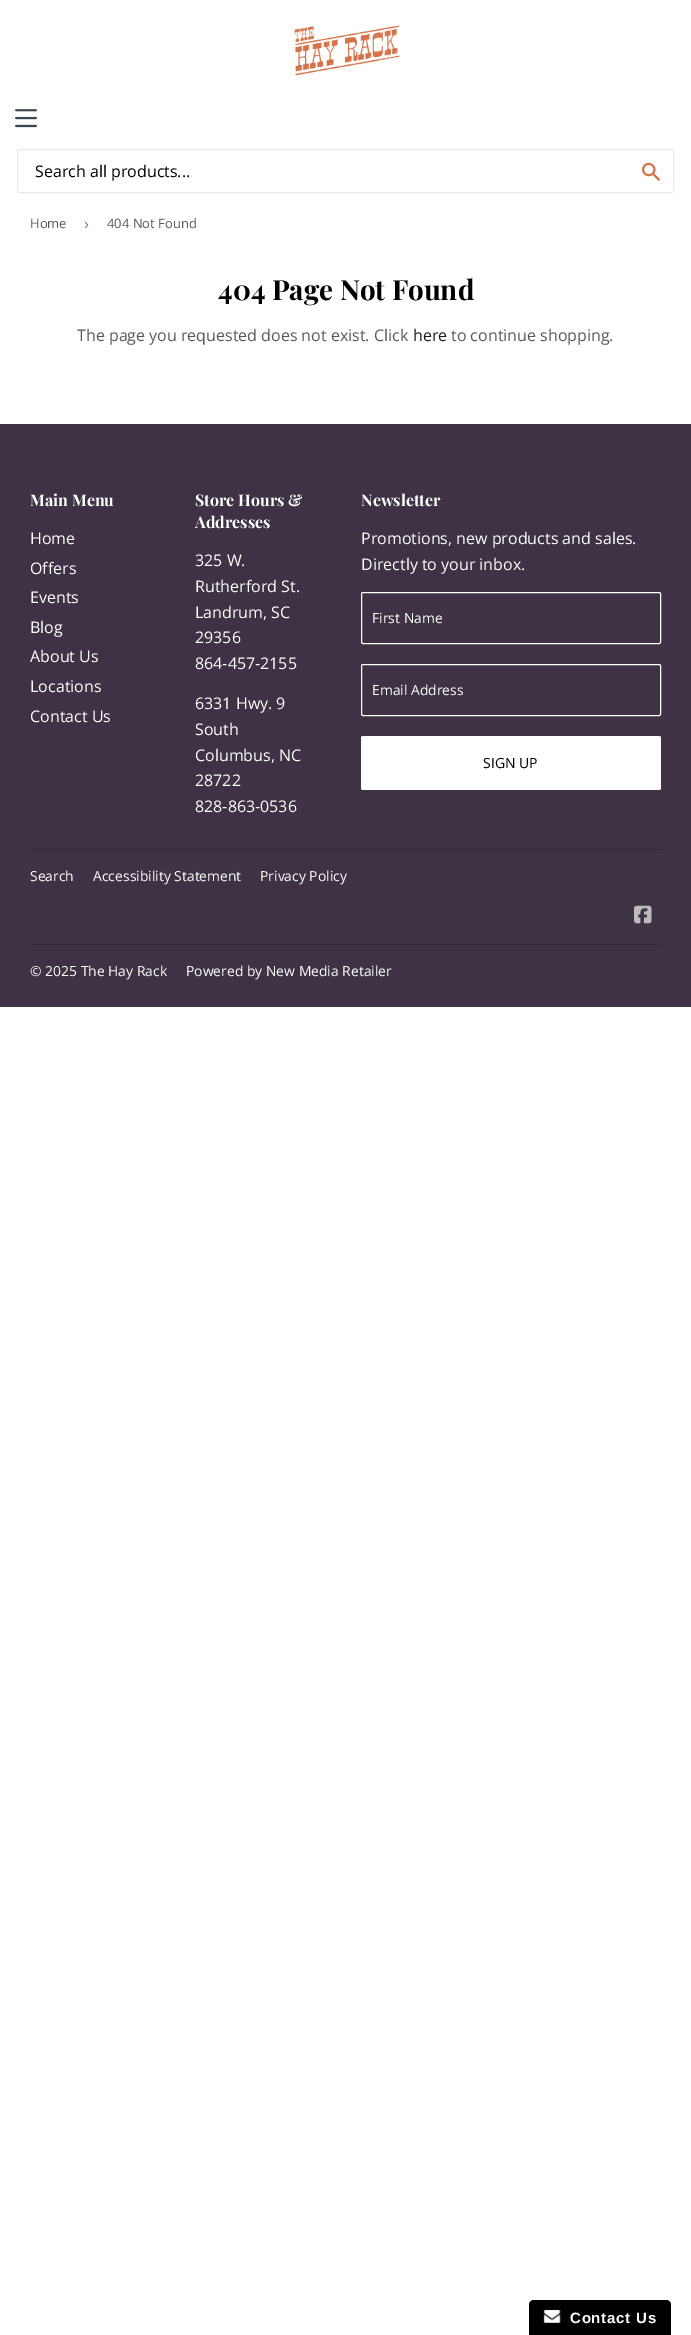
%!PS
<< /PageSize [691 2335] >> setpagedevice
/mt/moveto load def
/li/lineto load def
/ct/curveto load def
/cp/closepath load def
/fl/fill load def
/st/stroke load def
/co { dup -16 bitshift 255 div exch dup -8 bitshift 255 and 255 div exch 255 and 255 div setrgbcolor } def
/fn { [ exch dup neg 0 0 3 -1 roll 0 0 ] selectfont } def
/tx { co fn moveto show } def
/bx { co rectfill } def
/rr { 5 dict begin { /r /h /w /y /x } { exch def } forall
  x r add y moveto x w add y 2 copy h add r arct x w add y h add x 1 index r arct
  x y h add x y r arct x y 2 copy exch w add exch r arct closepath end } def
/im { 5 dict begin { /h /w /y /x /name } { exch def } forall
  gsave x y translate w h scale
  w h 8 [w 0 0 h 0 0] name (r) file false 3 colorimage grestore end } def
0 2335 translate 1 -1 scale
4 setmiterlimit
0 0 691 2335 16#FFFFFF bx
(media/1.raw) 294 25 106 51 im
(media/2.raw) 15 109 22 19 im
16#EAEAEA co
17.5 149.5 656 43 1.5 rr st
(media/3.raw) 642 162 18 19 im
0 424 691 583 16#3F3244 bx
16#FFFFFF co
361.5 592.5 299 51 1.5 rr st
361.5 664.5 299 51 1.5 rr st
361 736 300 54 2 rr fl
30 849 631 1 16#312735 bx
(media/4.raw) 634 905 18 19 im
30 944 631 1 16#312735 bx
16#000000 co
534 2300 mt 666 2300 li 669 2300 671 2302 671 2305 ct 671 2335 li 529 2335 li 529 2305 li 529 2302 531 2300 534 2300 ct cp fl
(media/5.raw) 543 2310 18 13 im
(Search all products...) 35 177 /OpenSans-Regular 16 16#000000 tx
(Home) 30 228 /OpenSans-Regular 13 16#585858 tx
(›) 84 229 /LiberationSans-Regular 15 16#767676 tx
(404 Not Found) 107 228 /OpenSans-Regular 13 16#585858 tx
(404 Page Not Found) 218 300 /PlayfairDisplay-Bold 27.75 16#000000 tx
(The page you requested does not exist. Click) 77 341 /OpenSans-Regular 16 16#585858 tx
(here) 413 341 /OpenSans-Regular 16 16#191919 tx
(to continue shopping.) 451 341 /OpenSans-Regular 16 16#585858 tx
(Main Menu) 30 506 /PlayfairDisplay-Bold 16 16#FFFFFF tx
(Home) 30 544 /OpenSans-Regular 16 16#FFFFFF tx
(Offers) 30 574 /OpenSans-Regular 16 16#FFFFFF tx
(Events) 30 603 /OpenSans-Regular 16 16#FFFFFF tx
(Blog) 30 633 /OpenSans-Regular 16 16#FFFFFF tx
(About Us) 30 662 /OpenSans-Regular 16 16#FFFFFF tx
(Locations) 30 692 /OpenSans-Regular 16 16#FFFFFF tx
(Contact Us) 30 722 /OpenSans-Regular 16 16#FFFFFF tx
(Store Hours &) 195 506 /PlayfairDisplay-Bold 16 16#FFFFFF tx
(Addresses) 195 528 /PlayfairDisplay-Bold 16 16#FFFFFF tx
(325 W.) 195 566 /OpenSans-Regular 16 16#FFFFFF tx
(Rutherford St.) 195 592 /OpenSans-Regular 16 16#FFFFFF tx
(Landrum, SC) 195 618 /OpenSans-Regular 16 16#FFFFFF tx
(29356) 195 643 /OpenSans-Regular 16 16#FFFFFF tx
(864-457-2155) 195 669 /OpenSans-Regular 16 16#FFFFFF tx
(6331 Hwy. 9) 195 709 /OpenSans-Regular 16 16#FFFFFF tx
(South) 195 735 /OpenSans-Regular 16 16#FFFFFF tx
(Columbus, NC) 195 761 /OpenSans-Regular 16 16#FFFFFF tx
(28722) 195 786 /OpenSans-Regular 16 16#FFFFFF tx
(828-863-0536) 195 812 /OpenSans-Regular 16 16#FFFFFF tx
(Newsletter) 361 506 /PlayfairDisplay-Bold 16 16#FFFFFF tx
(Promotions, new products and sales.) 361 544 /OpenSans-Regular 16 16#FFFFFF tx
(Directly to your inbox.) 361 570 /OpenSans-Regular 16 16#FFFFFF tx
(First Name) 372 623 /OpenSans-Regular 13.9 16#FFFFFF tx
(Email Address) 372 695 /OpenSans-Regular 13.9 16#FFFFFF tx
(SIGN UP) 483 768 /OpenSans-Regular 14 16#000000 tx
(Search) 30 881 /OpenSans-Regular 13.9 16#FFFFFF tx
(Accessibility Statement) 93 881 /OpenSans-Regular 13.9 16#FFFFFF tx
(Privacy Policy) 260 881 /OpenSans-Regular 13.9 16#FFFFFF tx
(© 2025 The Hay Rack) 30 976 /OpenSans-Regular 13.9 16#FFFFFF tx
(Powered by New Media Retailer) 186 976 /OpenSans-Regular 13.9 16#FFFFFF tx
/LiberationSans-Bold 15 fn
570 2323 mt .75 0 (Contact Us) ashow
showpage
